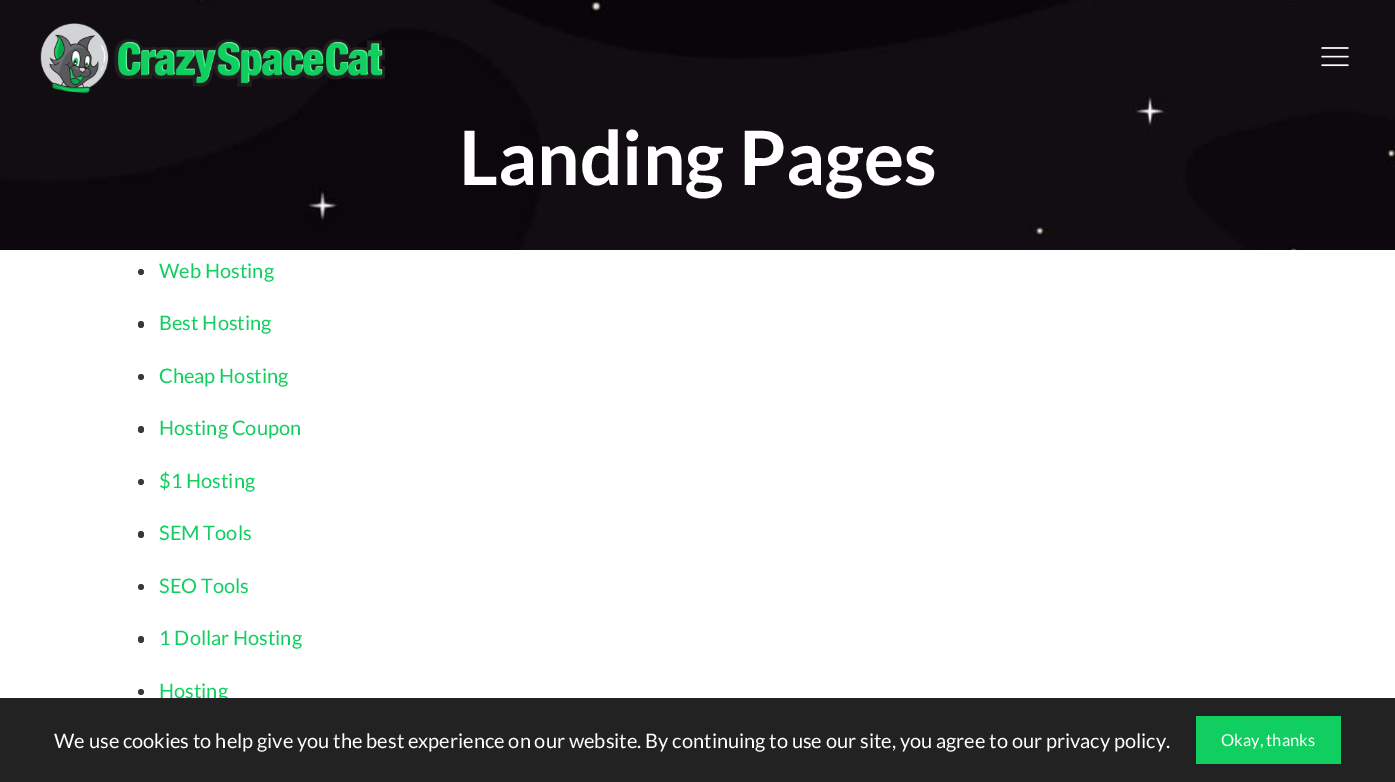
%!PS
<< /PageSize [1395 782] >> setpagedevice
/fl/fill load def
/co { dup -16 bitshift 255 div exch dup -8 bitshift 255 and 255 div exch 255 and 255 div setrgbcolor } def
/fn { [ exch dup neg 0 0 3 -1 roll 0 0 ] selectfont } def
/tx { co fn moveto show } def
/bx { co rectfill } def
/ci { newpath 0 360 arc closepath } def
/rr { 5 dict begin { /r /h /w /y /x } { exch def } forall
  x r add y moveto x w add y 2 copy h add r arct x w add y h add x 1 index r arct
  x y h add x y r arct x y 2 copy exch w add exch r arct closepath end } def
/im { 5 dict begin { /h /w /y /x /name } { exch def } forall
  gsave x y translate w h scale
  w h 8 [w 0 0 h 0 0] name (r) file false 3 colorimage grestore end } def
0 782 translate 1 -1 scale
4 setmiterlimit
0 0 1395 782 16#FFFFFF bx
(media/3.raw) 0 0 1395 250 im
(media/1.raw) 40 23 345 70 im
(media/2.raw) 1321 47 28 20 im
16#333B40 co
141 272 3 ci fl
138 321 6 7 3 rr fl
141 377 3 ci fl
138 426 6 7 3 rr fl
141 482 3 ci fl
138 531 6 7 3 rr fl
141 587 3 ci fl
138 636 6 7 3 rr fl
141 692 3 ci fl
(Landing Pages) 459 185 /Lato-Bold 75 16#FFFFFF tx
(Web Hosting) 159 278 /Lato-Regular 20 16#10CE60 tx
(Best Hosting) 159 330 /Lato-Regular 20 16#10CE60 tx
(Cheap Hosting) 159 383 /Lato-Regular 20 16#10CE60 tx
(Hosting Coupon) 159 435 /Lato-Regular 20 16#10CE60 tx
($1 Hosting) 159 488 /Lato-Regular 20 16#10CE60 tx
(SEM Tools) 159 540 /Lato-Regular 20 16#10CE60 tx
(SEO Tools) 159 593 /Lato-Regular 20 16#10CE60 tx
(1 Dollar Hosting) 159 645 /Lato-Regular 20 16#10CE60 tx
(Hosting) 159 698 /Lato-Regular 20 16#10CE60 tx
0 698 1395 84 16#222222 bx
(We use cookies to help give you the best experience on our website. By continuing to use our site, you agree to our privacy policy.) 54 748 /Lato-Regular 20 16#FFFFFF tx
1196 716 145 48 16#10CE60 bx
(Okay, thanks) 1221 746 /Lato-Regular 16.5 16#FFFFFF tx
showpage
